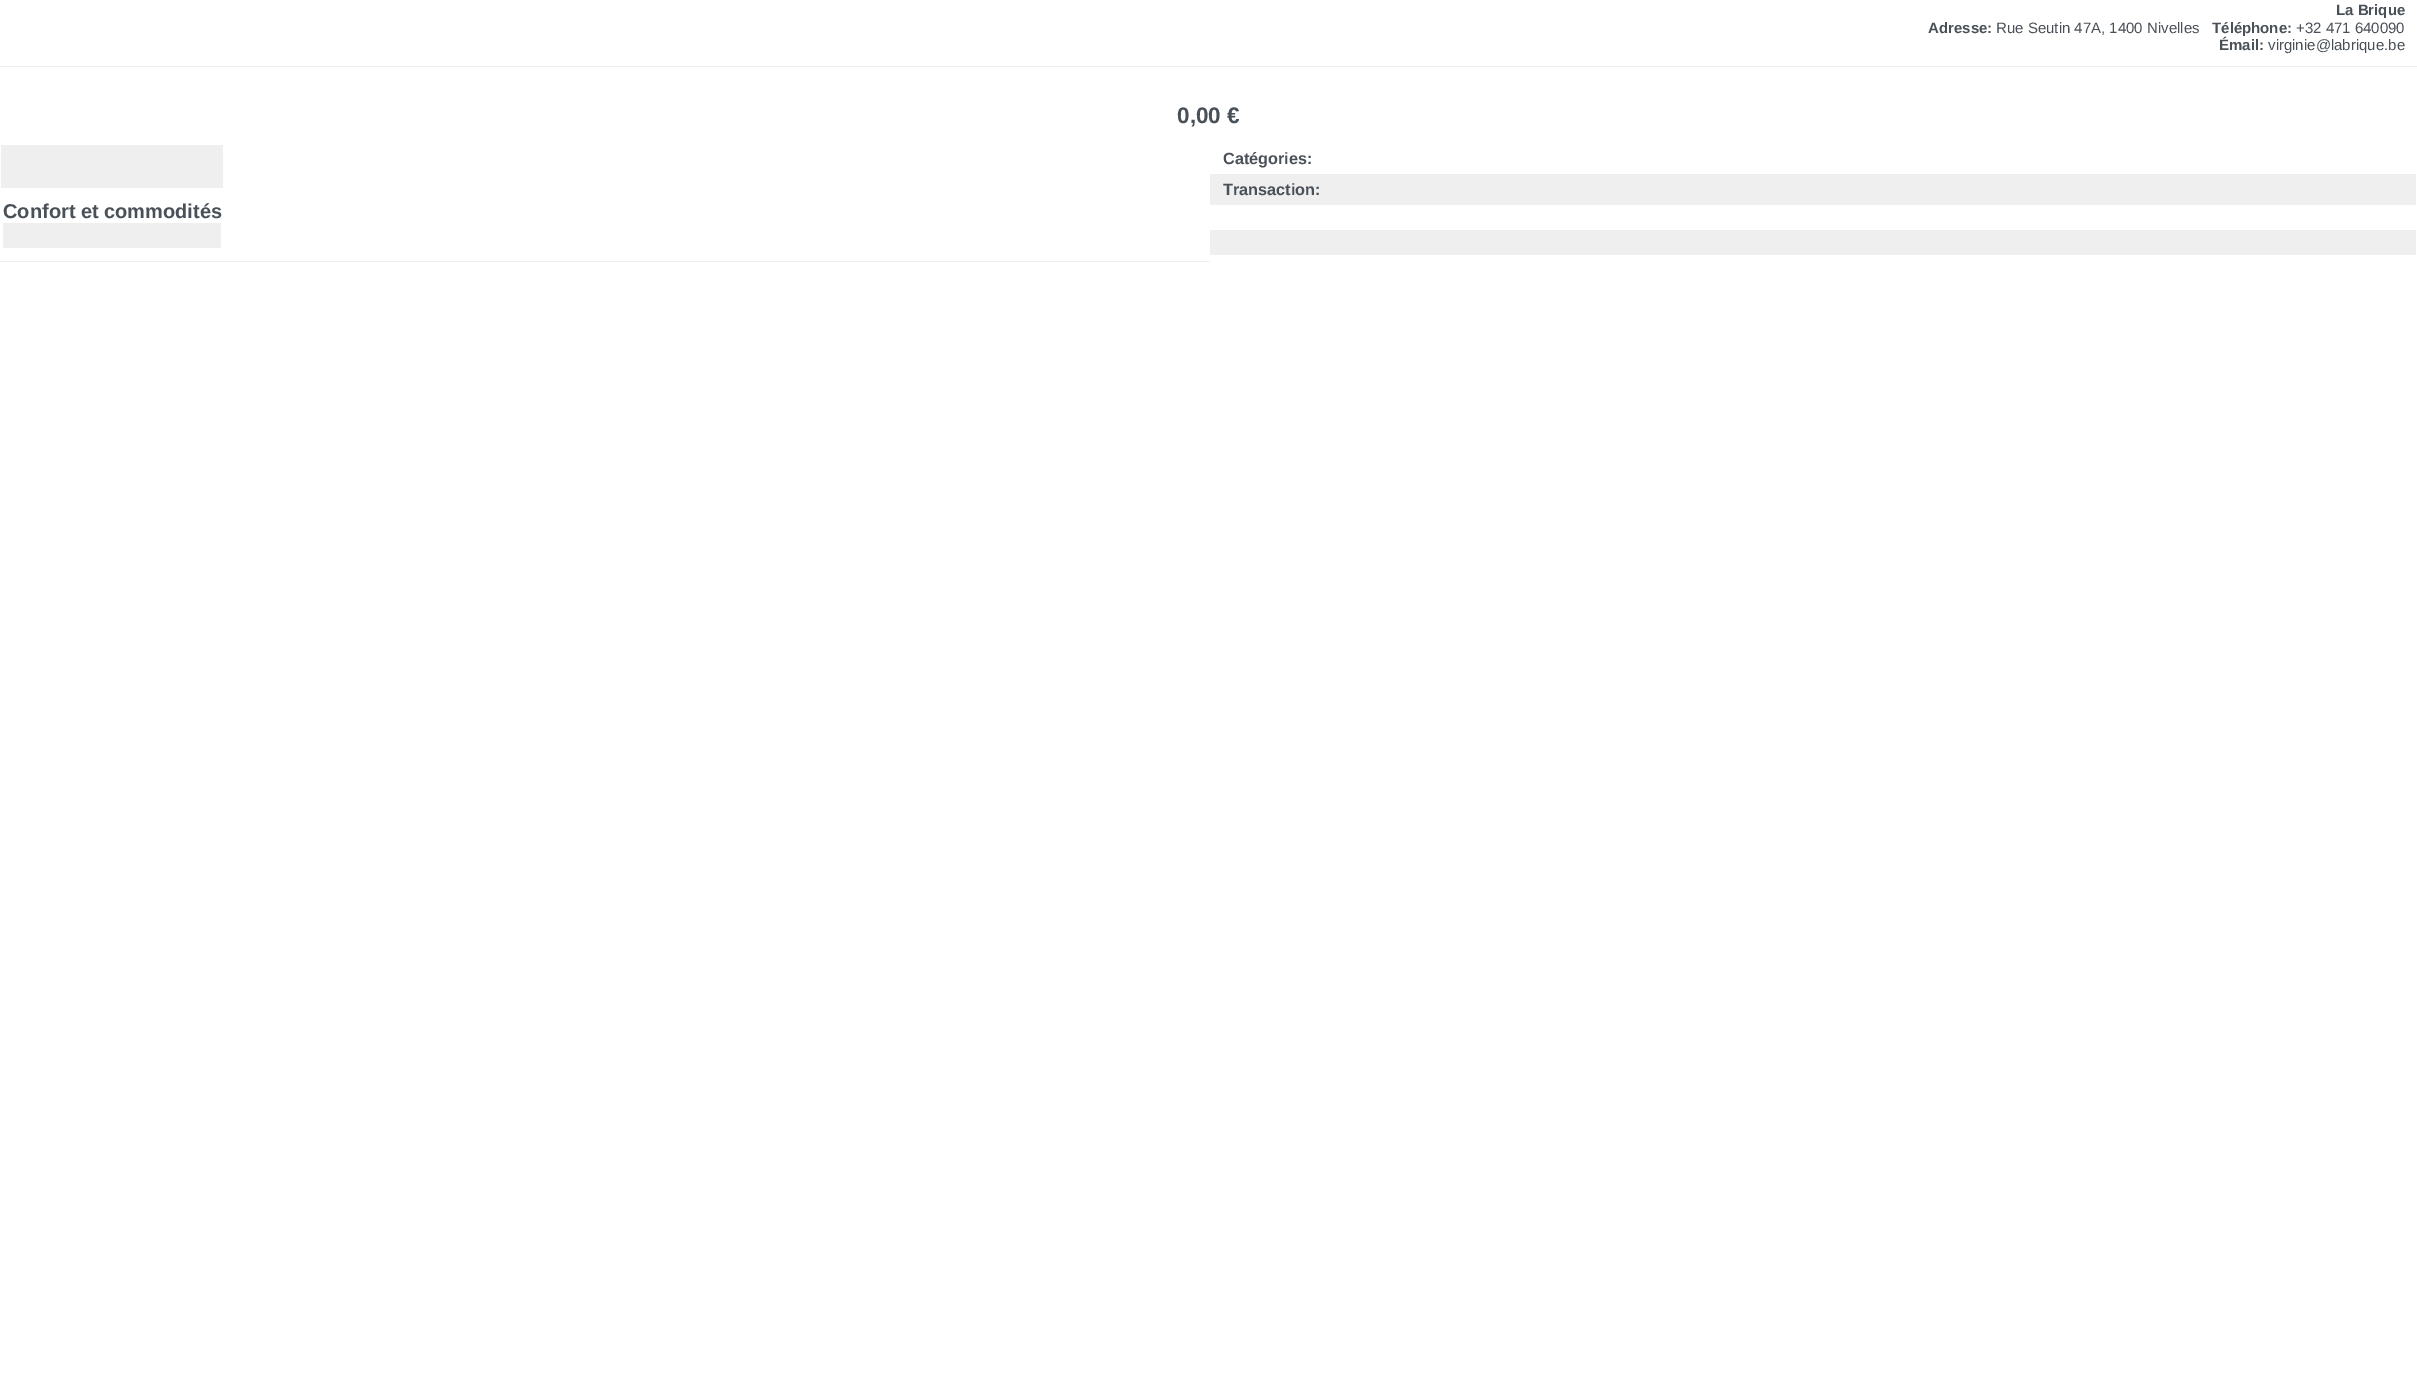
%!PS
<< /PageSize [2417 1384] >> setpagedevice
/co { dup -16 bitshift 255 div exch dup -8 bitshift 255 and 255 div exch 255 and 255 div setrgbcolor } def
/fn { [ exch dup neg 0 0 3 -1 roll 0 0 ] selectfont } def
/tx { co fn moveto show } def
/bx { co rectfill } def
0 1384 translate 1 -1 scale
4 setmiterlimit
0 0 2417 1384 16#FFFFFF bx
0 66 2417 1 16#EFEFEF bx
1210 174 1206 31 16#EFEFEF bx
1210 230 1206 25 16#EFEFEF bx
0 261 1210 1 16#EFEFEF bx
1 145 222 43 16#EFEFEF bx
3 223 218 25 16#EFEFEF bx
(La Brique) 2336 15 /LiberationSans-Bold 15 16#495057 tx
(Adresse:) 1928 33 /LiberationSans-Bold 15 16#495057 tx
(Rue Seutin 47A, 1400 Nivelles) 1996 33 /LiberationSans-Regular 15 16#495057 tx
(Téléphone:) 2212 33 /LiberationSans-Bold 15 16#495057 tx
(+32 471 640090) 2296 33 /LiberationSans-Regular 15 16#495057 tx
(Émail:) 2219 50 /LiberationSans-Bold 15 16#495057 tx
(virginie@labrique.be) 2268 50 /LiberationSans-Regular 15 16#495057 tx
(0,00 €) 1177 123 /LiberationSans-Bold 22.5 16#495057 tx
(Catégories:) 1223 164 /LiberationSans-Bold 16.25 16#495057 tx
(Transaction:) 1223 195 /LiberationSans-Bold 16.25 16#495057 tx
(Confort et commodités) 3 218 /LiberationSans-Bold 20 16#495057 tx
showpage
